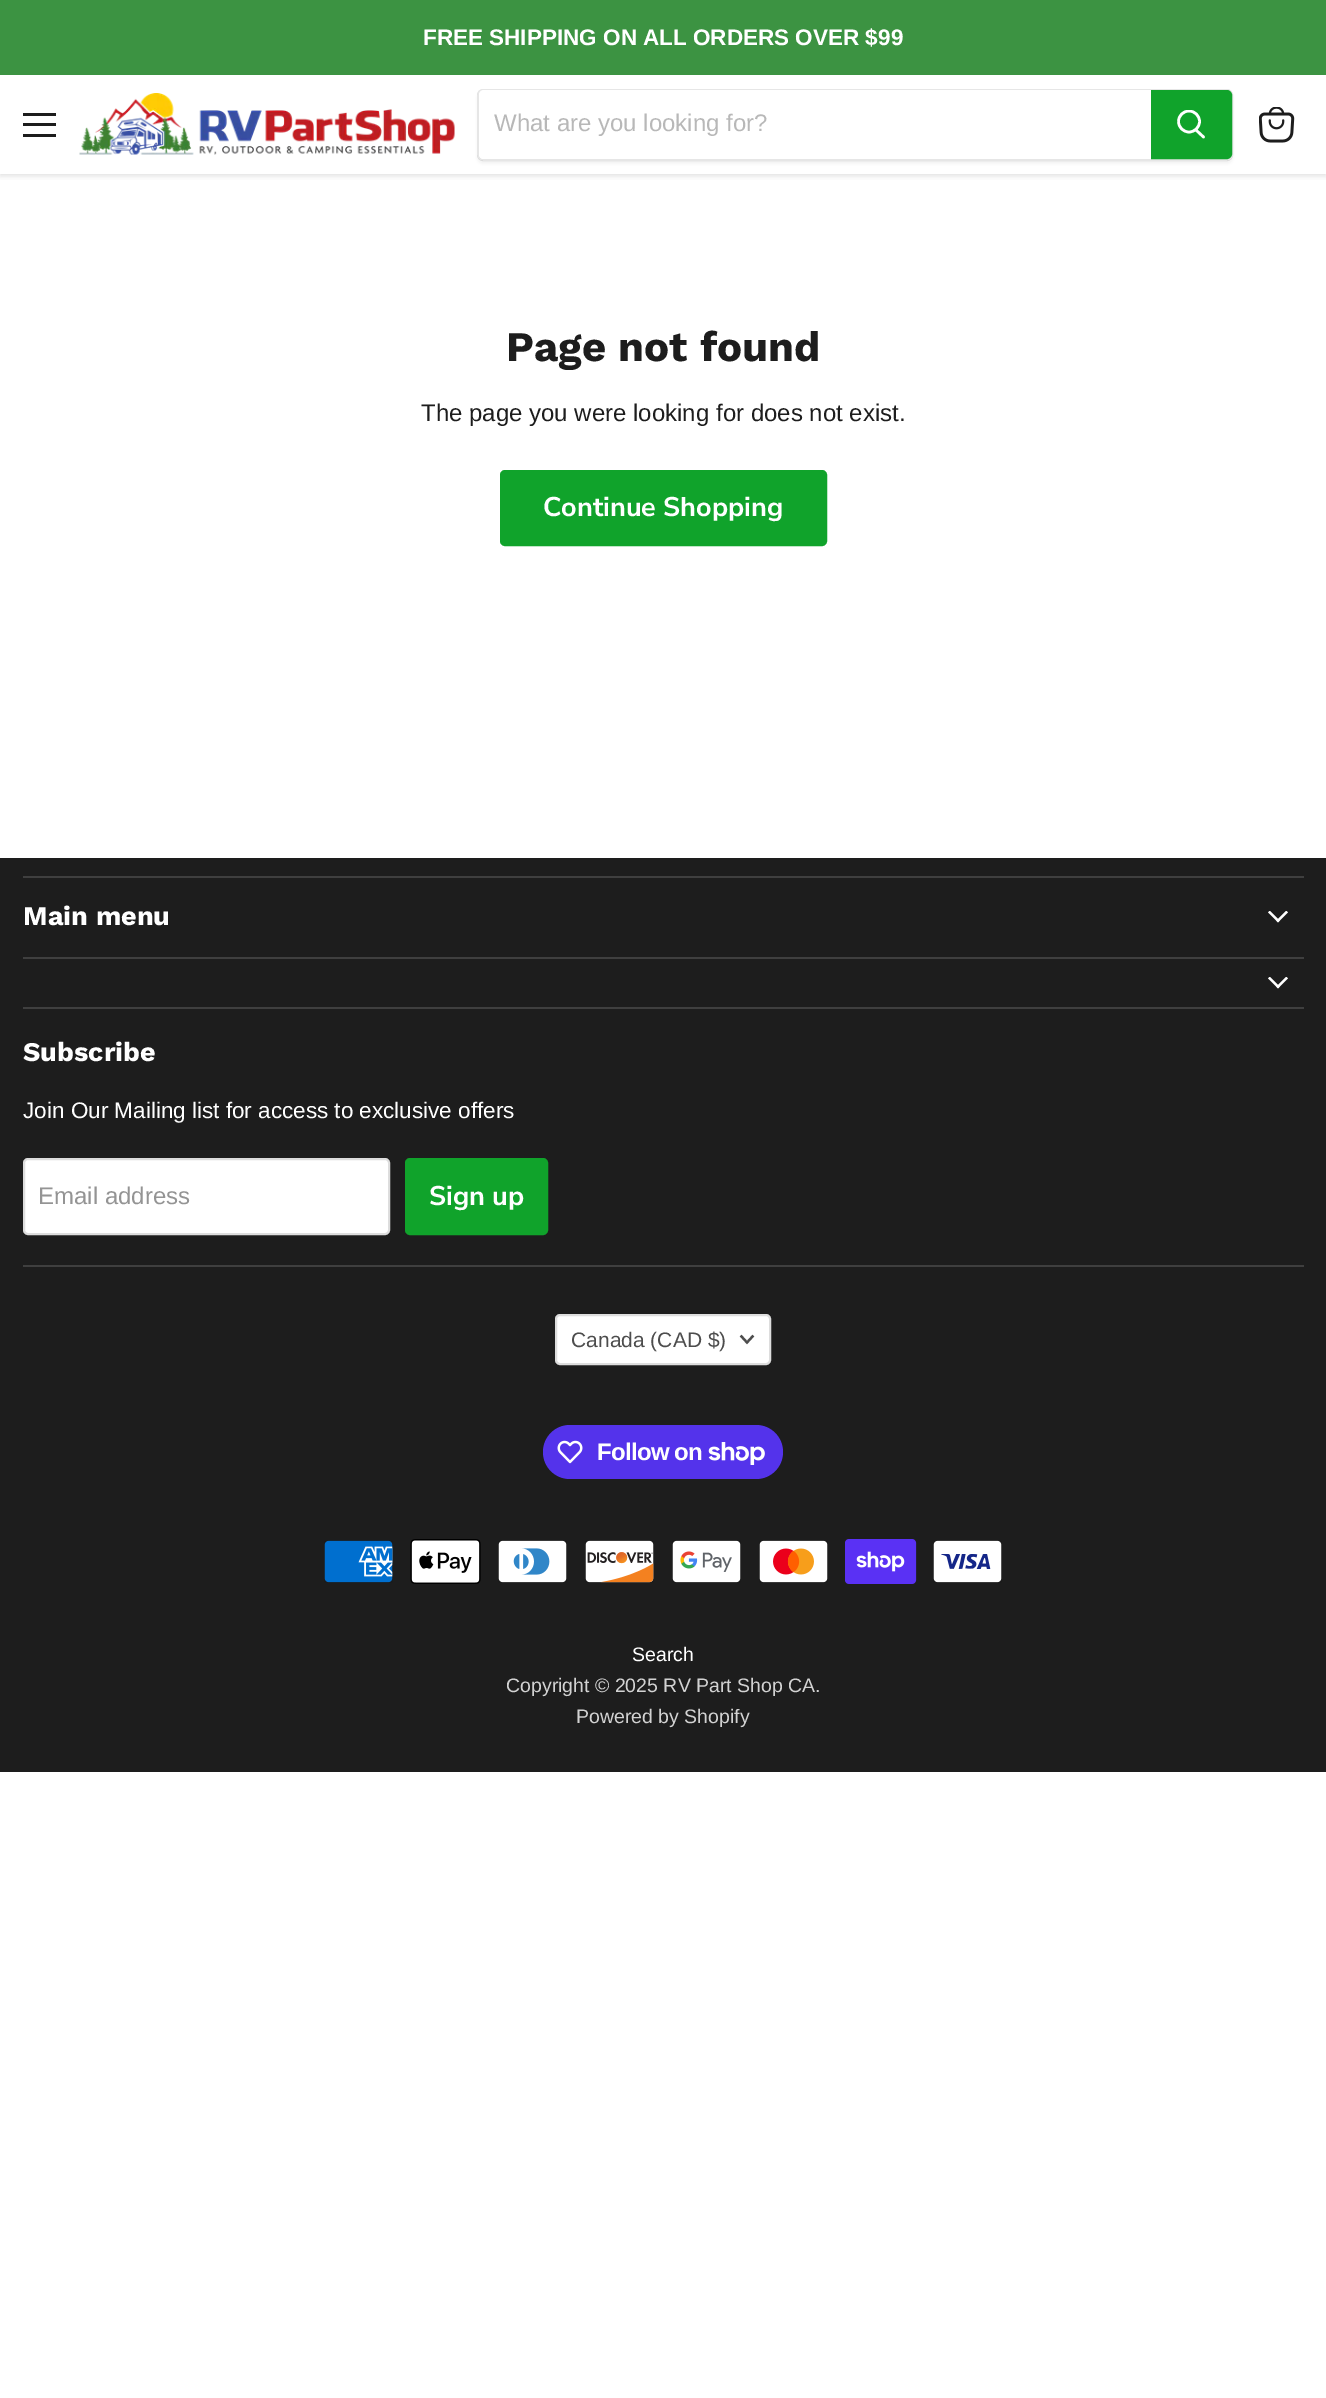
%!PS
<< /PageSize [1326 2398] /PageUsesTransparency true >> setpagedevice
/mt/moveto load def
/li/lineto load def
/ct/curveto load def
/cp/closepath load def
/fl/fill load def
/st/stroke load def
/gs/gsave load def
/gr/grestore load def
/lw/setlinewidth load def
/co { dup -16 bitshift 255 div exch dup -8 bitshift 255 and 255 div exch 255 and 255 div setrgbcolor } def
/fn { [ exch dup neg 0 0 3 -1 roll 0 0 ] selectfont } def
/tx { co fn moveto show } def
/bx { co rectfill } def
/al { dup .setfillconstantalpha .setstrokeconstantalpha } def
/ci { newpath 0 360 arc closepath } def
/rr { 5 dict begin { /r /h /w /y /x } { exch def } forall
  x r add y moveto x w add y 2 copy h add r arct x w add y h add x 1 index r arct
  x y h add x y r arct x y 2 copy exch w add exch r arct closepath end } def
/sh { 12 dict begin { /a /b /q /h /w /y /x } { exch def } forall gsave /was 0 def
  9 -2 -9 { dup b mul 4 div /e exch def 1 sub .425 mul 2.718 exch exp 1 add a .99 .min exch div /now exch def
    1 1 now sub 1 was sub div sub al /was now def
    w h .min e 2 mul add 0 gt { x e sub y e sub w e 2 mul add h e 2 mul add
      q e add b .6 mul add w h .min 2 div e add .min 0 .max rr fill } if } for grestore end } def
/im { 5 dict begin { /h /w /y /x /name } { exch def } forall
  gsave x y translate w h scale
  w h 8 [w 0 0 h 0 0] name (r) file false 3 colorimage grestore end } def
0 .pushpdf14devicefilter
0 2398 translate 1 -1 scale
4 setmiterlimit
0 0 1326 2398 16#FFFFFF bx
gs
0 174 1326 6 rectclip
16#808080 co
0 77 1326 99 0 3 .25 sh
gr
0 0 1326 75 16#3C9342 bx
23 113 33 3 16#1D1D1D bx
23 123 33 3 16#1D1D1D bx
23 134 33 3 16#1D1D1D bx
(media/1.raw) 79 93 376 62 im
gs
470 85 mt 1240 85 li 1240 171 li 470 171 li cp 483 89 mt 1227 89 li 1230.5 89 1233 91.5 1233 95 ct 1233 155 li 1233 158.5 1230.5 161 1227 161 ct 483 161 li 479.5 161 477 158.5 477 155 ct 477 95 li 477 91.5 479.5 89 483 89 ct cp eoclip newpath
16#808080 co
477 92 756 72 6 2 .11 sh
gr
0.2 al
16#808080 co
2 lw
478 90 754 70 5 rr st
1 al
16#FFFFFF co
484 90 mt 1151 90 li 1151 159 li 484 159 li 481 159 479 157 479 154 ct 479 95 li 479 92 481 90 484 90 ct cp fl
16#10A32B co
1152 91 mt 1227 91 li 1229 91 1231 93 1231 95 ct 1231 154 li 1231 156 1229 158 1227 158 ct 1152 158 li cp gs fl gr
st
16#FFFFFF co
2.6 lw
1 setlinecap
1203.5 137 mt 1196 130 li st
gs
1176 110 30 31 rectclip
0 setlinecap
1189 121.5 10.5 ci st
gr
(media/2.raw) 1259 107 36 36 im
16#10A32B co
501 471 325 74 4 rr gs fl gr
2 lw
0 setlinecap
st
0 858 1326 914 16#1D1D1D bx
23 876 1281 2 16#3F3F3F bx
23 957 1281 2 16#3F3F3F bx
(media/3.raw) 1268 911 20 12 im
23 1007 1281 2 16#3F3F3F bx
(media/3.raw) 1268 977 20 12 im
23 1265 1281 2 16#3F3F3F bx
16#FFFFFF co
24 1159 365 75 4 rr gs fl gr
16#DDDDDD co
st
16#10A32B co
406 1159 141 75 4 rr gs fl gr
st
16#FFFFFF co
556 1315 214 49 4 rr gs fl gr
16#DDDDDD co
st
16#4D4D4D co
2.3 lw
2 setlinecap
747 1342.5 mt 752.5 1336.5 li 747 1342.5 mt 741.5 1336.5 li st
16#5433EB co
543 1425 240 54 27 rr fl
(media/4.raw) 557 1440 26 24 im
(media/5.raw) 708 1442 57 23 im
(media/6.raw) 324 1540 69 43 im
(media/7.raw) 410 1539 71 45 im
(media/8.raw) 498 1540 69 43 im
(media/9.raw) 585 1540 69 43 im
(media/10.raw) 672 1540 69 43 im
(media/11.raw) 759 1540 69 43 im
(media/12.raw) 845 1539 72 45 im
(media/13.raw) 933 1540 69 43 im
(FREE SHIPPING ON ALL ORDERS OVER $99) 423 45 /LiberationSans-Bold 22.5 16#FFFFFF tx
(What are you looking for?) 494 131 /LiberationSans-Regular 24 16#B8B8B8 tx
(Page not found) 506 361 /WorkSans-Bold 42 16#1D1D1D tx
(The page you were looking for does not exist.) 421 421 /LiberationSans-Regular 24 16#1D1D1D tx
(Continue Shopping) 543 516 /NunitoSans-Bold 27 16#FFFFFF tx
(Main menu) 23 925 /WorkSans-Bold 27 16#FFFFFF tx
(Subscribe) 23 1061 /WorkSans-Bold 27 16#FFFFFF tx
(Join Our Mailing list for access to exclusive offers) 23 1118 /LiberationSans-Regular 22.5 16#FFFFFF tx
(Email address) 38 1204 /LiberationSans-Regular 24 16#949494 tx
(Sign up) 429 1205 /NunitoSans-Bold 27 16#FFFFFF tx
(Canada \(CAD $\)) 571 1347 /LiberationSans-Regular 21 16#4D4D4D tx
/LiberationSans-Bold 24 fn
16#FFFFFF co
597 1460 mt -.75 0 (Follow on) ashow
(Search) 632 1661 /LiberationSans-Regular 19.5 16#FFFFFF tx
(Copyright © 2025 RV Part Shop CA.) 506 1692 /LiberationSans-Regular 19.5 16#D2D2D2 tx
(Powered by Shopify) 576 1723 /LiberationSans-Regular 19.5 16#D2D2D2 tx
.poppdf14devicefilter showpage
